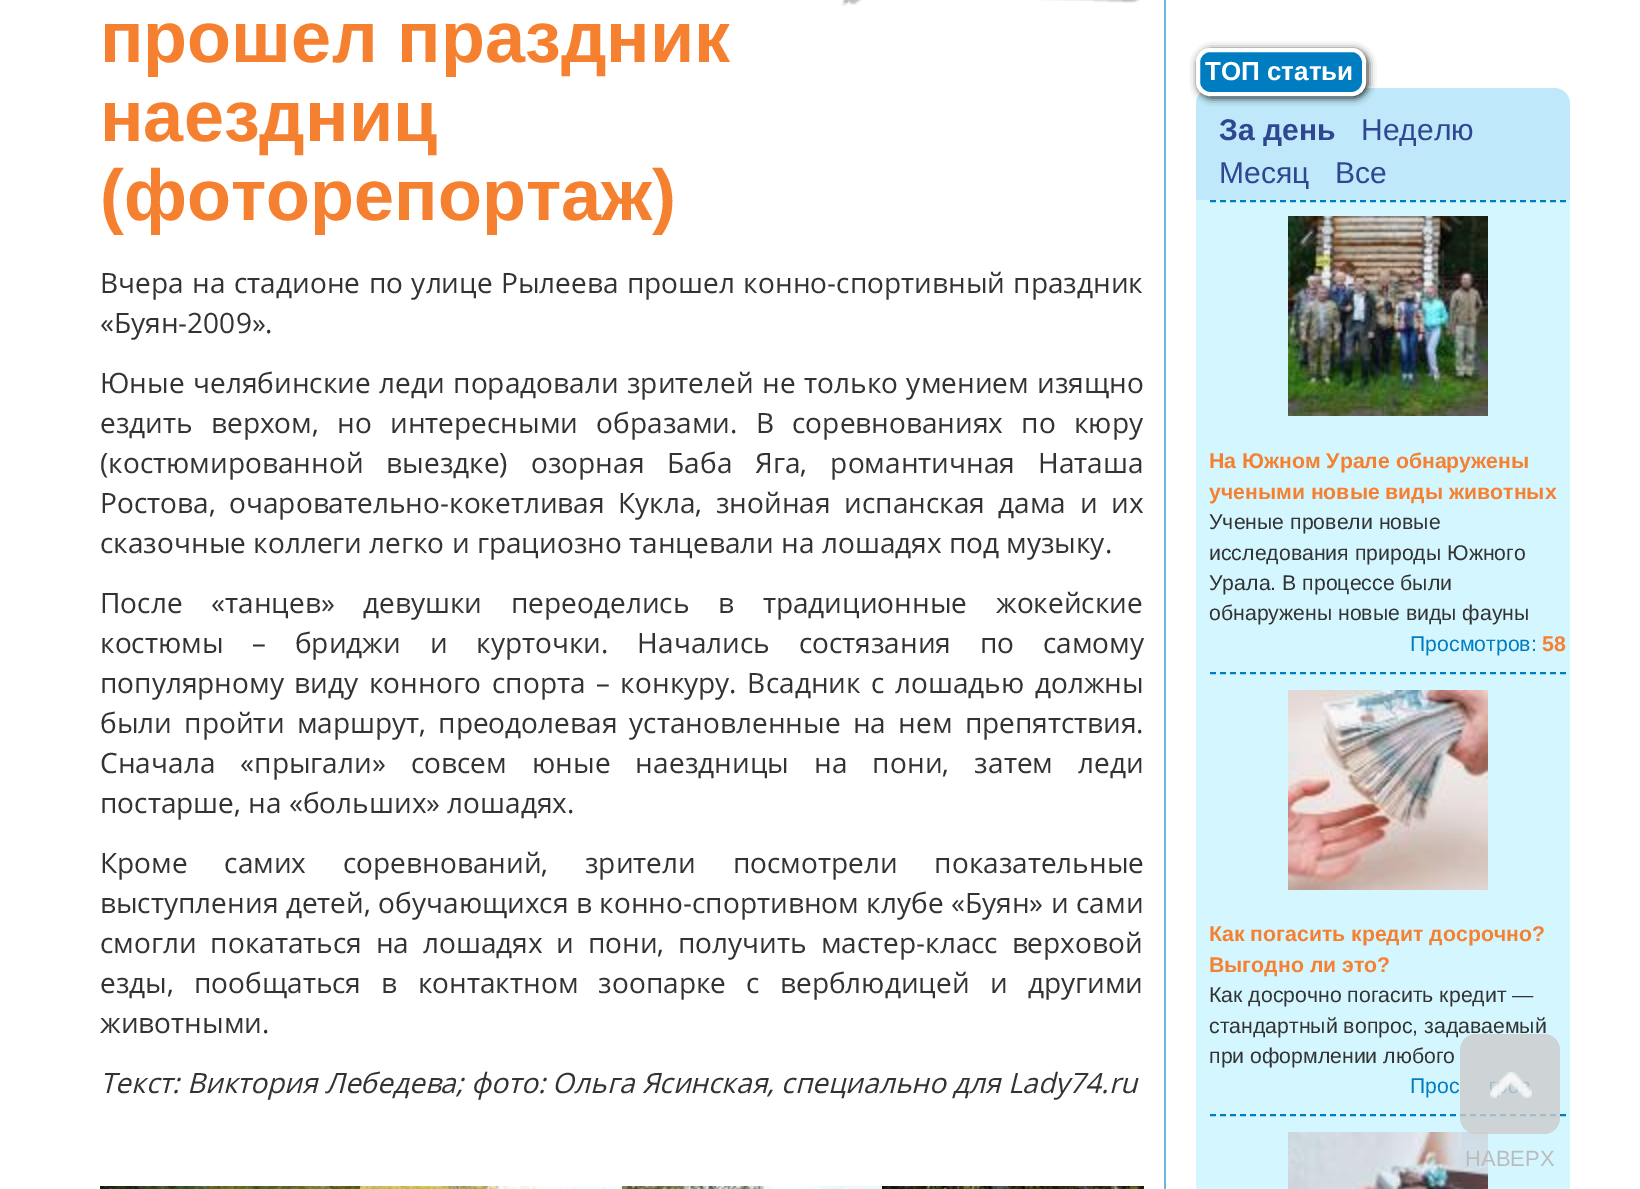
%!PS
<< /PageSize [1640 1189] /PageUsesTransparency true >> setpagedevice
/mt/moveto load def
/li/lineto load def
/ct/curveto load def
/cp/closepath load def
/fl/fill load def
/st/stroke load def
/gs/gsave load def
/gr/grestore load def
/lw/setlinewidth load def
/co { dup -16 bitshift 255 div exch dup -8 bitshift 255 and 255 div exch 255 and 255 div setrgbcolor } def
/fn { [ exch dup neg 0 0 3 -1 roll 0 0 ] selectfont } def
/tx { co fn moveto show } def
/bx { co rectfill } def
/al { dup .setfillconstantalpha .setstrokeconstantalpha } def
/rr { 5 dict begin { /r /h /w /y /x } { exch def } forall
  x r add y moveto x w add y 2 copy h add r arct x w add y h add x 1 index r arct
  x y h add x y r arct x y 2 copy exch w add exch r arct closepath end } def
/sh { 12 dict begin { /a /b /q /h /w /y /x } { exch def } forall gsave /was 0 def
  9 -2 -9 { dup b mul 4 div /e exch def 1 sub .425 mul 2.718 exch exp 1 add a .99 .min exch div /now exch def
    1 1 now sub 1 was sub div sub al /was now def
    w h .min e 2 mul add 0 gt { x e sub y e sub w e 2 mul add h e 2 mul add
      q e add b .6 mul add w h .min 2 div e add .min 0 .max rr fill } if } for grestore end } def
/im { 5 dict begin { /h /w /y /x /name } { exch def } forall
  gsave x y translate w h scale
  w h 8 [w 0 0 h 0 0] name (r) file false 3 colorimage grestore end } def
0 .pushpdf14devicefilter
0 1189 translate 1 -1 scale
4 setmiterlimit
0 0 1640 1189 16#FFFFFF bx
1164 0 2 1189 16#6CB6DF bx
(media/1.raw) 841 0 299 7 im
(media/2.raw) 100 1186 260 3 im
(media/3.raw) 360 1186 262 3 im
(media/4.raw) 622 1186 260 3 im
(media/5.raw) 882 1186 262 3 im
16#BFE9FA co
1212 88 mt 1554 88 li 1563 88 1570 95 1570 104 ct 1570 200 li 1196 200 li 1196 104 li 1196 95 1203 88 1212 88 ct cp fl
16#000000 co
1198 50 170 48 14 4 .9 sh
16#007DC1 co
1198 50 166 44 12 rr gs fl gr
16#FFFFFF co
4 lw
st
1196 200 374 989 16#D4F6FF bx
16#007DC1 co
2 lw
[6 4] 0 setdash
1210 201 mt 1566 201 li st
1210 673 mt 1566 673 li st
(media/6.raw) 1288 216 200 200 im
1210 1115 mt 1566 1115 li st
(media/7.raw) 1288 690 200 200 im
(media/8.raw) 1288 1132 200 57 im
(прошел праздник) 100 62 /LiberationSans-Bold 72 16#F58030 tx
(наездниц) 100 141 /LiberationSans-Bold 72 16#F58030 tx
(\(фоторепортаж\)) 100 220 /LiberationSans-Bold 72 16#F58030 tx
/OpenSans-Regular 28 fn
16#333333 co
100 293 mt 1.25 0 32 (Вчера на стадионе по улице Рылеева прошел конно-спортивный праздник) widthshow
(«Буян-2009».) 100 333 /OpenSans-Regular 28 16#333333 tx
100 393 mt 1.25 0 32 (Юные челябинские леди порадовали зрителей не только умением изящно) widthshow
100 433 mt 11 0 32 (ездить верхом, но интересными образами. В соревнованиях по кюру) widthshow
100 473 mt 15.75 0 32 (\(костюмированной выездке\) озорная Баба Яга, романтичная Наташа) widthshow
100 513 mt 6.25 0 32 (Ростова, очаровательно-кокетливая Кукла, знойная испанская дама и их) widthshow
(сказочные коллеги легко и грациозно танцевали на лошадях под музыку.) 100 553 /OpenSans-Regular 28 16#333333 tx
100 613 mt 21.5 0 32 (После «танцев» девушки переоделись в традиционные жокейские) widthshow
100 653 mt 21.5 0 32 (костюмы – бриджи и курточки. Начались состязания по самому) widthshow
100 693 mt 3.25 0 32 (популярному виду конного спорта – конкуру. Всадник с лошадью должны) widthshow
100 733 mt 5 0 32 (были пройти маршрут, преодолевая установленные на нем препятствия.) widthshow
100 773 mt 18 0 32 (Сначала «прыгали» совсем юные наездницы на пони, затем леди) widthshow
(постарше, на «больших» лошадях.) 100 813 /OpenSans-Regular 28 16#333333 tx
100 873 mt 29.5 0 32 (Кроме самих соревнований, зрители посмотрели показательные) widthshow
100 913 mt .25 0 32 (выступления детей, обучающихся в конно-спортивном клубе «Буян» и сами) widthshow
100 953 mt 6.5 0 32 (смогли покататься на лошадях и пони, получить мастер-класс верховой) widthshow
100 993 mt 13 0 32 (езды, пообщаться в контактном зоопарке с верблюдицей и другими) widthshow
(животными.) 100 1033 /OpenSans-Regular 28 16#333333 tx
(Текст: Виктория Лебедева; фото: Ольга Ясинская, специально для Lady74.ru) 100 1093 /OpenSans-Italic 28 16#333333 tx
(ТОП статьи) 1205 80 /LiberationSans-Bold 26 16#FFFFFF tx
(За день) 1219 140 /LiberationSans-Bold 30 16#2F4791 tx
(Неделю) 1361 140 /LiberationSans-Regular 30 16#2F4791 tx
(Месяц) 1219 183 /LiberationSans-Regular 30 16#2F4791 tx
(Все) 1335 183 /LiberationSans-Regular 30 16#2F4791 tx
(На Южном Урале обнаружены) 1209 468 /LiberationSans-Bold 21.25 16#F58030 tx
(учеными новые виды животных) 1209 499 /LiberationSans-Bold 21.25 16#F58030 tx
(Ученые провели новые) 1209 529 /LiberationSans-Regular 21.25 16#333333 tx
(исследования природы Южного) 1209 560 /LiberationSans-Regular 21.25 16#333333 tx
(Урала. В процессе были) 1209 590 /LiberationSans-Regular 21.25 16#333333 tx
(обнаружены новые виды фауны) 1209 620 /LiberationSans-Regular 21.25 16#333333 tx
(Просмотров:) 1410 651 /LiberationSans-Regular 21.25 16#007DC1 tx
(58) 1542 651 /LiberationSans-Bold 21.25 16#F58030 tx
(Как погасить кредит досрочно?) 1209 941 /LiberationSans-Bold 21.25 16#F58030 tx
(Выгодно ли это?) 1209 972 /LiberationSans-Bold 21.25 16#F58030 tx
(Как досрочно погасить кредит —) 1209 1002 /LiberationSans-Regular 21.25 16#333333 tx
(стандартный вопрос, задаваемый) 1209 1033 /LiberationSans-Regular 21.25 16#333333 tx
(при оформлении любого) 1209 1063 /LiberationSans-Regular 21.25 16#333333 tx
(Прос) 1410 1093 /LiberationSans-Regular 21.25 16#007DC1 tx
0.8 al
16#CCCCCC co
1460 1034 100 100 16 rr fl
1 al
(media/9.raw) 1490 1072 42 26 im
(НАВЕРХ) 1465 1166 /LiberationSans-Regular 22 16#BBBBBB tx
.poppdf14devicefilter showpage
